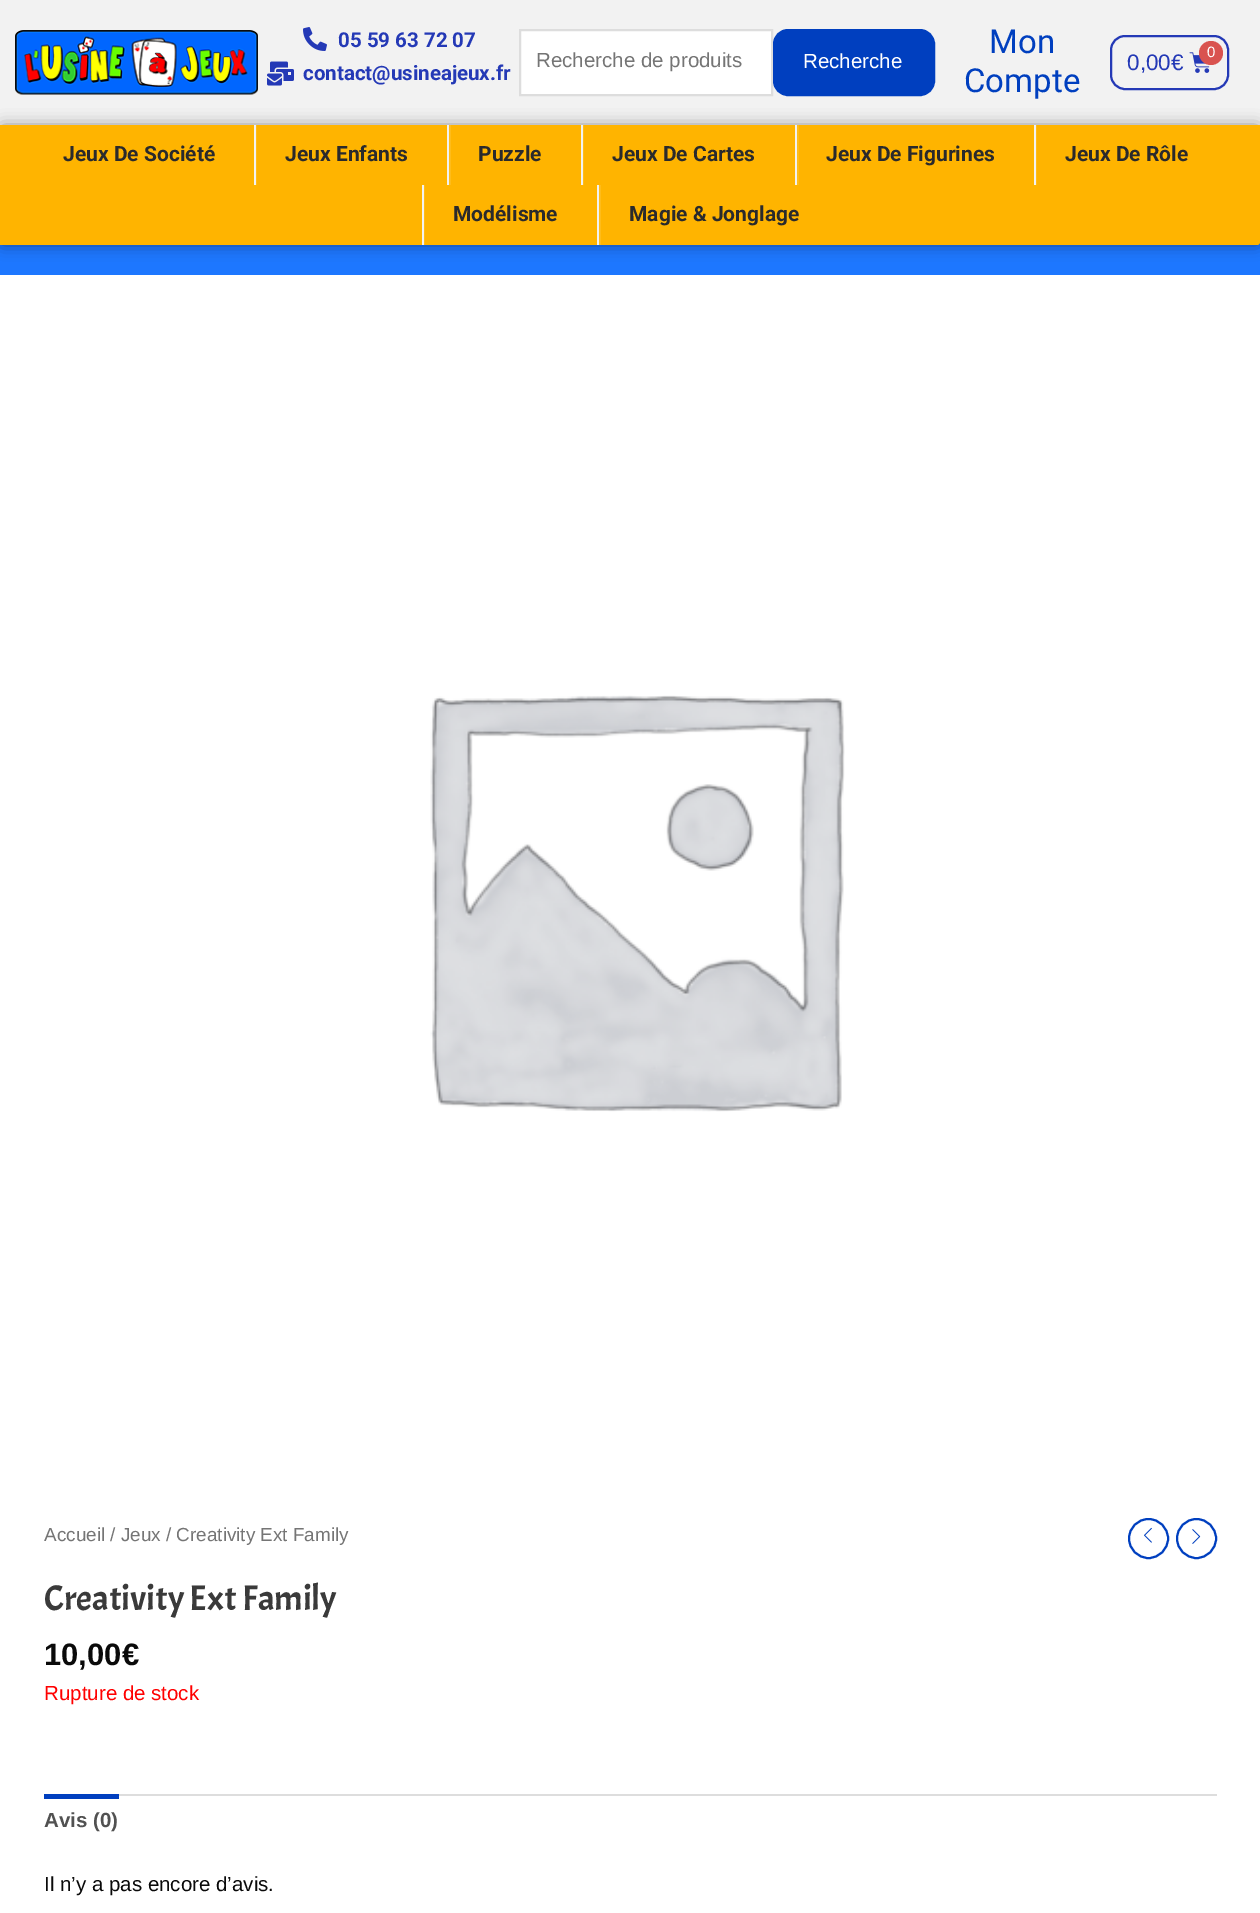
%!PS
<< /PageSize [1260 1913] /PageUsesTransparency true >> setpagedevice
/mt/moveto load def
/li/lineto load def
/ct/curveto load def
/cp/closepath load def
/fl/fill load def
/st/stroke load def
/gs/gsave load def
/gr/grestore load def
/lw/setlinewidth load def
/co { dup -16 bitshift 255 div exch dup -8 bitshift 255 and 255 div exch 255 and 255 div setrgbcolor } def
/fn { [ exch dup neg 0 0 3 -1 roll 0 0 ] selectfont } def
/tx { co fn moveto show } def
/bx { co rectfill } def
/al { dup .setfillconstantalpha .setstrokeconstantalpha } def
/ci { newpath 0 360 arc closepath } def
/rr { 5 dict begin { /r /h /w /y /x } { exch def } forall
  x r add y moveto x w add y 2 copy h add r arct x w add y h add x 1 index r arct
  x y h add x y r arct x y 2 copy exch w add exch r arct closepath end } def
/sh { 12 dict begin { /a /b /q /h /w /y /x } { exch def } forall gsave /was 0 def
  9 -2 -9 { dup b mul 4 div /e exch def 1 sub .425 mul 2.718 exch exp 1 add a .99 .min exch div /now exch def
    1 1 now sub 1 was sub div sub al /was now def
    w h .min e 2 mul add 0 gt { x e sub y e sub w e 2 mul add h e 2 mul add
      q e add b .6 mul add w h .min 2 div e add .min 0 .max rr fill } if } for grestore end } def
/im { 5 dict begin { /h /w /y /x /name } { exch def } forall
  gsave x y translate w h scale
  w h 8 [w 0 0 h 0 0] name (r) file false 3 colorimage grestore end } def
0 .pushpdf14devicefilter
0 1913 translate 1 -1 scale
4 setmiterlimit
0 0 1260 1913 16#1D77FF bx
0 0 1260 125 16#F2F2F2 bx
(media/1.raw) 15 30 243 65 im
(media/2.raw) 303 27 24 24 im
(media/3.raw) 267 61 27 25 im
16#FFFFFF co
520 30 mt 772 30 li 772 95 li 520 95 li cp gs fl gr
16#DDDDDD co
2 lw
st
16#003FBF co
774 30 160 65 14 rr gs fl gr
st
16#2439B6 co
1111 36 117 53 14 rr st
(media/4.raw) 1189 52 21 21 im
16#D9534F co
1211 53 12 ci fl
16#000000 co
0 125 1260 120 3 7.5 .39 sh
16#FFB400 co
0 125 mt 1260 125 li 1260 242 li 1260 243.5 1258.5 245 1257 245 ct 0 245 li cp fl
256 125 1 60 16#FFBC1A bx
254 125 2 60 16#F2F2F2 bx
449 125 2 60 16#FFBC1A bx
447 125 2 60 16#F2F2F2 bx
583 125 1 60 16#FFBC1A bx
581 125 2 60 16#F2F2F2 bx
797 125 2 60 16#FFBC1A bx
795 125 2 60 16#F2F2F2 bx
1036 125 1 60 16#FFBC1A bx
1034 125 2 60 16#F2F2F2 bx
424 185 1 60 16#FFBC1A bx
422 185 2 60 16#F2F2F2 bx
599 185 2 60 16#FFBC1A bx
597 185 2 60 16#F2F2F2 bx
0 275 1260 1638 16#FFFFFF bx
(media/5.raw) 430 695 415 417 im
16#003FBF co
1148.5 1538.5 19.5 ci st
(media/6.raw) 1144 1527 8 16 im
1196.5 1538.5 19.5 ci st
(media/7.raw) 1192 1529 9 15 im
119 1794 1098 2 16#DDDDDD bx
44 1794 75 5 16#003FBF bx
(05 59 63 72 07) 338 47 /Roboto-Bold 20.5 16#2439B6 tx
(contact@usineajeux.fr) 303 80 /Roboto-Bold 20.5 16#2439B6 tx
(Recherche de produits) 536 67 /LiberationSans-Regular 20.5 16#757575 tx
(Recherche) 803 68 /LiberationSans-Regular 20.5 16#FFFFFF tx
(Mon) 989 53 /Roboto-Regular 33 16#003FBF tx
(Compte) 964 92 /Roboto-Regular 33 16#003FBF tx
(0) 1207 57 /LiberationSans-Regular 15 16#FFFFFF tx
(0,00€) 1127 70 /LiberationSans-Regular 22.5 16#2439B6 tx
(Jeux De Société) 63 161 /Roboto-Bold 21 16#2A2A2C tx
(Jeux Enfants) 285 161 /Roboto-Bold 21 16#2A2A2C tx
(Puzzle) 478 161 /Roboto-Bold 21 16#2A2A2C tx
(Jeux De Cartes) 612 161 /Roboto-Bold 21 16#2A2A2C tx
(Jeux De Figurines) 826 161 /Roboto-Bold 21 16#2A2A2C tx
(Jeux De Rôle) 1065 161 /Roboto-Bold 21 16#2A2A2C tx
(Modélisme) 453 221 /Roboto-Bold 21 16#2A2A2C tx
(Magie & Jonglage) 629 221 /Roboto-Bold 21 16#2A2A2C tx
(Accueil / Jeux / Creativity Ext Family) 44 1541 /LiberationSans-Regular 18.9 16#757575 tx
(Creativity Ext Family) 44 1610 /Acme-Regular 35.5 16#3A3A3A tx
(10,00€) 44 1665 /LiberationSans-Bold 31 16#0A0A0A tx
(Rupture de stock) 44 1700 /LiberationSans-Regular 20.5 16#FF0000 tx
(Avis \(0\)) 44 1827 /LiberationSans-Bold 20.5 16#515151 tx
(Il n’y a pas encore d’avis.) 44 1891 /LiberationSans-Regular 20.5 16#0A0A0A tx
.poppdf14devicefilter showpage
